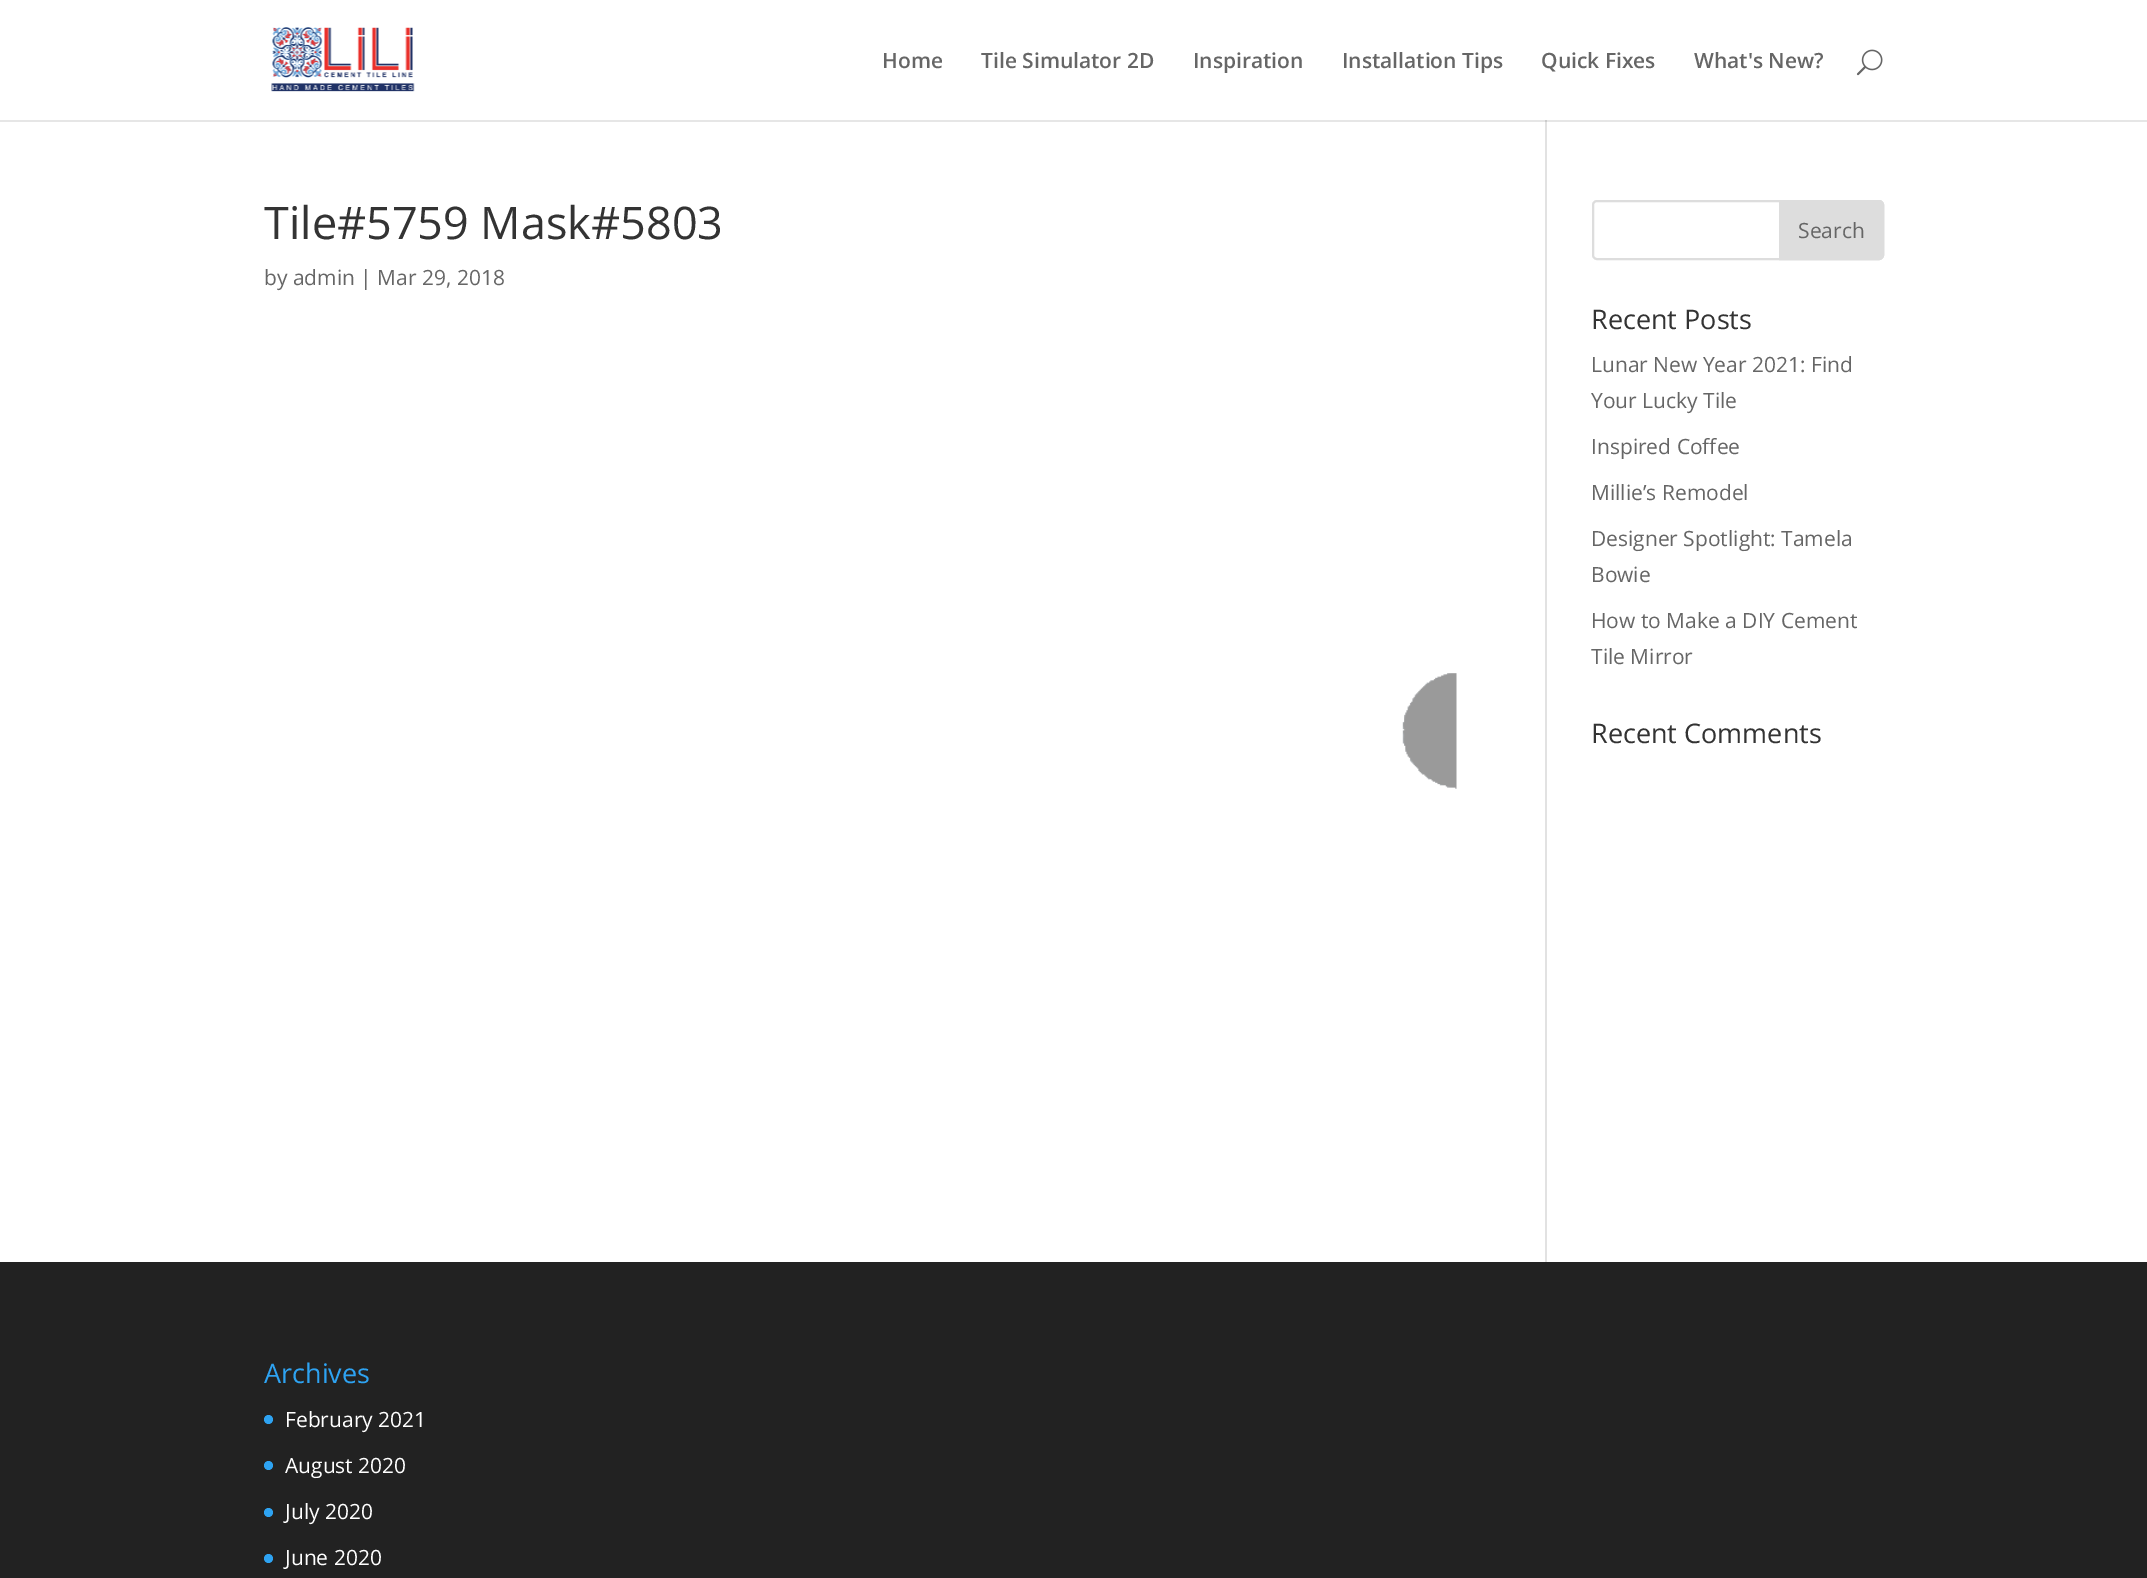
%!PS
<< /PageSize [2147 1578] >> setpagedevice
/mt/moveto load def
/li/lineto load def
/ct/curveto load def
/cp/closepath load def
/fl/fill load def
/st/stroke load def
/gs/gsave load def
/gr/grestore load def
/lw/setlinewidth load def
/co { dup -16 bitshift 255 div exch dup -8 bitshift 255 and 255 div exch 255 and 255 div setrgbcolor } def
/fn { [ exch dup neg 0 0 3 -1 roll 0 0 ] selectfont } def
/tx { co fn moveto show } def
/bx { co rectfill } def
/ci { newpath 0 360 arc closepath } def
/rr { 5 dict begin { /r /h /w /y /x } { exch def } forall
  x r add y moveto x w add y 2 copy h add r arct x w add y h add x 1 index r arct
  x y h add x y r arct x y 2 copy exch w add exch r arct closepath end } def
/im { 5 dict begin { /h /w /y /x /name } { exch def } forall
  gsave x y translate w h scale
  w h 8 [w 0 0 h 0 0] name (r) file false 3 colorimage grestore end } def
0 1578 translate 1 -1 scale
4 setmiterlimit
0 0 2147 1578 16#FFFFFF bx
0 120 2147 2 16#E6E6E6 bx
(media/1.raw) 271 27 144 65 im
(media/2.raw) 1856 49 27 27 im
1545 122 2 1140 16#E2E2E2 bx
1545 120 2 2 16#CBCBCB bx
(media/3.raw) 1402 673 55 116 im
16#DDDDDD co
2 lw
1593 201 290 58 4 rr st
1780 201 mt 1879 201 li 1881 201 1883 203 1883 205 ct 1883 255 li 1883 257 1881 259 1879 259 ct 1780 259 li cp gs fl gr
st
0 1262 2147 316 16#222222 bx
16#2EA3F2 co
268.5 1419.5 4.5 ci fl
268.5 1465.5 4.5 ci fl
268.5 1512.5 4.5 ci fl
268.5 1558.5 4.5 ci fl
(Home) 882 68 /OpenSans-SemiBold 21 16#666666 tx
(Tile Simulator 2D) 981 68 /OpenSans-SemiBold 21 16#666666 tx
(Inspiration) 1193 68 /OpenSans-SemiBold 21 16#666666 tx
(Installation Tips) 1342 68 /OpenSans-SemiBold 21 16#666666 tx
(Quick Fixes) 1541 68 /OpenSans-SemiBold 21 16#666666 tx
(What's New?) 1694 68 /OpenSans-SemiBold 21 16#666666 tx
(Tile#5759 Mask#5803) 264 239 /OpenSans-Regular 45 16#333333 tx
(by admin | Mar 29, 2018) 264 285 /OpenSans-Regular 21 16#666666 tx
(Search) 1798 238 /OpenSans-Regular 21 16#666666 tx
(Recent Posts) 1591 329 /OpenSans-Regular 27 16#333333 tx
(Lunar New Year 2021: Find) 1591 372 /OpenSans-Regular 21 16#666666 tx
(Your Lucky Tile) 1591 408 /OpenSans-Regular 21 16#666666 tx
(Inspired Coffee) 1591 454 /OpenSans-Regular 21 16#666666 tx
(Millie’s Remodel) 1591 500 /OpenSans-Regular 21 16#666666 tx
(Designer Spotlight: Tamela) 1591 546 /OpenSans-Regular 21 16#666666 tx
(Bowie) 1591 582 /OpenSans-Regular 21 16#666666 tx
(How to Make a DIY Cement) 1591 628 /OpenSans-Regular 21 16#666666 tx
(Tile Mirror) 1591 664 /OpenSans-Regular 21 16#666666 tx
(Recent Comments) 1591 743 /OpenSans-Regular 27 16#333333 tx
(Archives) 264 1383 /OpenSans-Regular 27 16#2EA3F2 tx
(February 2021) 285 1427 /OpenSans-Regular 21 16#FFFFFF tx
(August 2020) 285 1473 /OpenSans-Regular 21 16#FFFFFF tx
(July 2020) 285 1519 /OpenSans-Regular 21 16#FFFFFF tx
(June 2020) 285 1565 /OpenSans-Regular 21 16#FFFFFF tx
showpage
